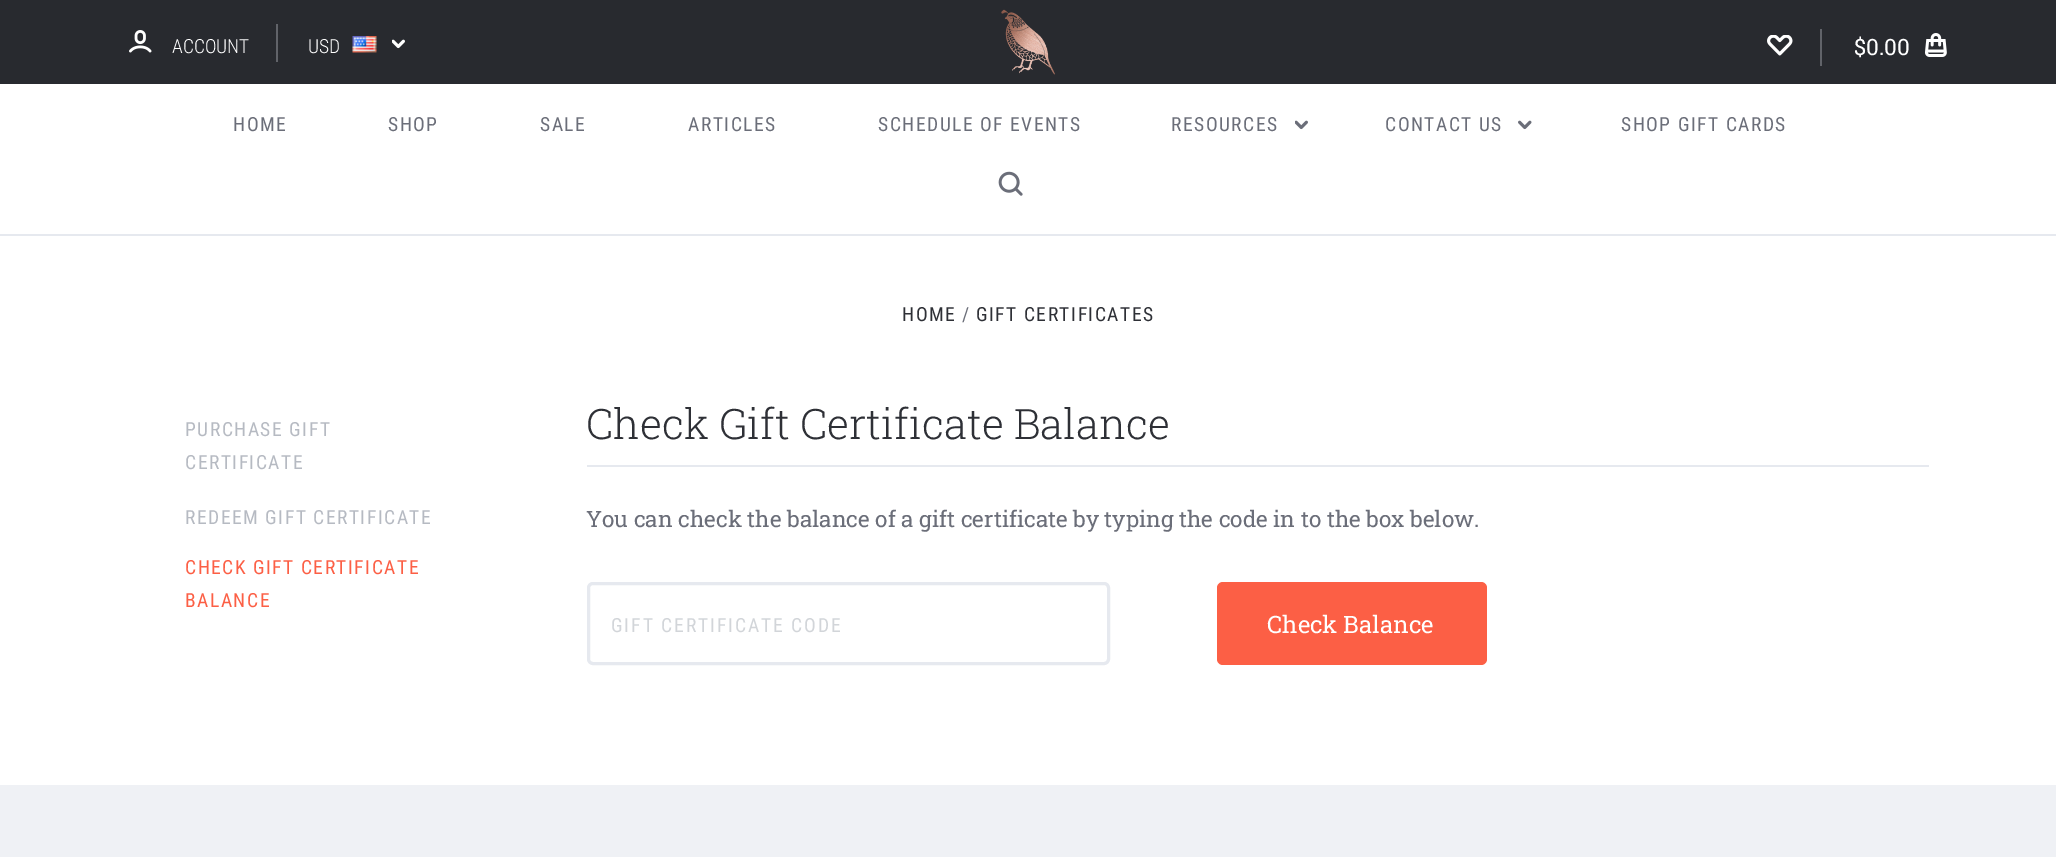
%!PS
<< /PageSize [2056 857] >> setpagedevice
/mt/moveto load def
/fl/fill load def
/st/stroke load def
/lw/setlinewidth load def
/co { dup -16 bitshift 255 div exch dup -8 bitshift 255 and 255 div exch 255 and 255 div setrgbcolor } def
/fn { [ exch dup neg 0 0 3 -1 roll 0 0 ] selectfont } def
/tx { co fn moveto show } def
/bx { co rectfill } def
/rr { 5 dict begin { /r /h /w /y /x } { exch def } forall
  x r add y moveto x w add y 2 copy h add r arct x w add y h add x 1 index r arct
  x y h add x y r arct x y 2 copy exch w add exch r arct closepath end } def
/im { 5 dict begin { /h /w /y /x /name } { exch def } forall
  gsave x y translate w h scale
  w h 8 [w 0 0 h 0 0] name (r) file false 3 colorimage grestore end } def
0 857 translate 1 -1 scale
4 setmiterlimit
0 0 2056 857 16#FFFFFF bx
0 234 2056 2 16#E6E9EF bx
0 0 2056 84 16#282A2F bx
(media/1.raw) 129 30 23 23 im
276 24 2 38 16#616369 bx
(media/2.raw) 352 36 25 17 im
(media/3.raw) 392 39 13 10 im
(media/4.raw) 1001 9 54 66 im
(media/5.raw) 1767 35 26 21 im
1820 29 2 37 16#616369 bx
(media/6.raw) 1925 33 22 24 im
(media/7.raw) 1295 120 13 10 im
(media/8.raw) 1518 120 14 10 im
(media/9.raw) 998 171 25 25 im
587 465 1342 2 16#E6E9EF bx
3 lw
588.5 583.5 520 80 4.5 rr st
16#FC5F45 co
1217 582 270 83 6 rr fl
0 785 2056 72 16#EFF1F5 bx
(ACCOUNT) 172 53 /RobotoCondensed-Light 19.5 16#FFFFFF tx
(USD) 308 53 /RobotoCondensed-Light 19.5 16#FFFFFF tx
($0.00) 1854 55 /RobotoSlab-Regular 22.5 16#FFFFFF tx
/RobotoCondensed-Regular 19.5 fn
16#6B6E79 co
233 131 mt 1.5 0 (HOME) ashow
388 131 mt 1.5 0 (SHOP) ashow
540 131 mt 1.5 0 (SALE) ashow
688 131 mt 1.5 0 (ARTICLES) ashow
878 131 mt 1.5 0 (SCHEDULE OF EVENTS) ashow
1171 131 mt 1.5 0 (RESOURCES) ashow
1385 131 mt 1.5 0 (CONTACT US) ashow
1621 131 mt 1.5 0 (SHOP GIFT CARDS) ashow
16#2E3036 co
902 321 mt 1.5 0 (HOME) ashow
16#6B6E79 co
962 321 mt 1.5 0 (/) ashow
16#2E3036 co
976 321 mt 1.5 0 (GIFT CERTIFICATES) ashow
16#B6BAC2 co
185 436 mt 1.5 0 (PURCHASE GIFT) ashow
185 469 mt 1.5 0 (CERTIFICATE) ashow
185 524 mt 1.5 0 (REDEEM GIFT CERTIFICATE) ashow
16#FC5F45 co
185 574 mt 1.5 0 (CHECK GIFT CERTIFICATE) ashow
185 607 mt 1.5 0 (BALANCE) ashow
(Check Gift Certificate Balance) 586 439 /RobotoSlab-Light 42 16#2E3036 tx
(You can check the balance of a gift certificate by typing the code in to the box below.) 586 527 /RobotoSlab-Regular 22.5 16#6B6E79 tx
/RobotoCondensed-Regular 19.5 fn
16#D2D5D9 co
611 632 mt 1.95 0 (GIFT CERTIFICATE CODE) ashow
(Check Balance) 1267 633 /RobotoSlab-Regular 24 16#FFFFFF tx
showpage
